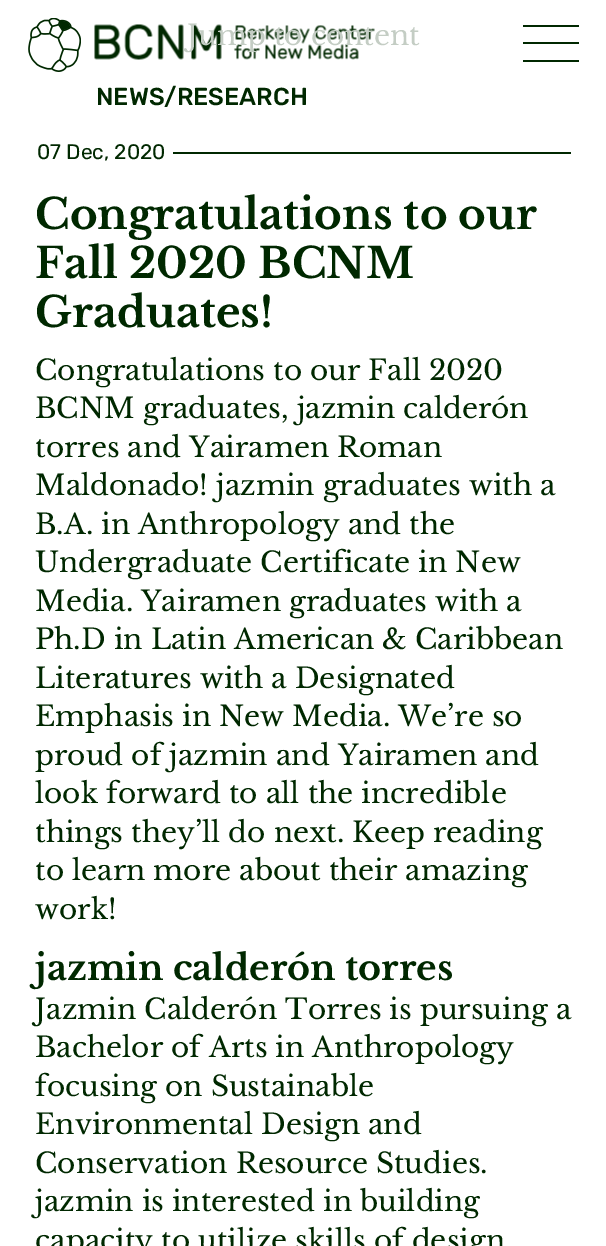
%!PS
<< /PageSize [606 1246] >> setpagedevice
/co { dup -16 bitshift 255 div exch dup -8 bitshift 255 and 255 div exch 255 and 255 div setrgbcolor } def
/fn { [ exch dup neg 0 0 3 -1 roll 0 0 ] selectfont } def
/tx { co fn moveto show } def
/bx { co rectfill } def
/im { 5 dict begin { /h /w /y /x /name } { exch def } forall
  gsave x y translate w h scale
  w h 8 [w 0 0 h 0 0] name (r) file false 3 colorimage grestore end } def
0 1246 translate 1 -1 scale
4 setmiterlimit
0 0 606 1246 16#FFFFFF bx
(media/1.raw) 28 18 53 54 im
(media/2.raw) 94 24 281 36 im
523 25 56 2 16#002800 bx
523 42 56 2 16#002800 bx
523 60 56 2 16#002800 bx
173 152 398 2 16#002800 bx
(Jump to content) 187 45 /LibreBaskerville-Regular 28 16#C4CDC4 tx
(NEWS/RESEARCH) 96 105 /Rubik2-Light 24.5 16#002800 tx
(07 Dec, 2020) 37 159 /Rubik-Light 21 16#002800 tx
(Congratulations to our) 35 229 /LibreBaskerville-Bold 42 16#002800 tx
(Fall 2020 BCNM) 35 278 /LibreBaskerville-Bold 42 16#002800 tx
(Graduates!) 35 327 /LibreBaskerville-Bold 42 16#002800 tx
(Congratulations to our Fall 2020) 35 380 /LibreBaskerville-Regular 28 16#002800 tx
(BCNM graduates, jazmin calderón) 35 418 /LibreBaskerville-Regular 28 16#002800 tx
(torres and Yairamen Roman) 35 457 /LibreBaskerville-Regular 28 16#002800 tx
(Maldonado! jazmin graduates with a) 35 495 /LibreBaskerville-Regular 28 16#002800 tx
(B.A. in Anthropology and the) 35 534 /LibreBaskerville-Regular 28 16#002800 tx
(Undergraduate Certificate in New) 35 572 /LibreBaskerville-Regular 28 16#002800 tx
(Media. Yairamen graduates with a) 35 611 /LibreBaskerville-Regular 28 16#002800 tx
(Ph.D in Latin American & Caribbean) 35 649 /LibreBaskerville-Regular 28 16#002800 tx
(Literatures with a Designated) 35 688 /LibreBaskerville-Regular 28 16#002800 tx
(Emphasis in New Media. We’re so) 35 726 /LibreBaskerville-Regular 28 16#002800 tx
(proud of jazmin and Yairamen and) 35 765 /LibreBaskerville-Regular 28 16#002800 tx
(look forward to all the incredible) 35 803 /LibreBaskerville-Regular 28 16#002800 tx
(things they’ll do next. Keep reading) 35 842 /LibreBaskerville-Regular 28 16#002800 tx
(to learn more about their amazing) 35 880 /LibreBaskerville-Regular 28 16#002800 tx
(work!) 35 919 /LibreBaskerville-Regular 28 16#002800 tx
(jazmin calderón torres) 35 980 /LibreBaskerville-Bold 35 16#002800 tx
(Jazmin Calderón Torres is pursuing a) 35 1019 /LibreBaskerville-Regular 28 16#002800 tx
(Bachelor of Arts in Anthropology) 35 1057 /LibreBaskerville-Regular 28 16#002800 tx
(focusing on Sustainable) 35 1096 /LibreBaskerville-Regular 28 16#002800 tx
(Environmental Design and) 35 1134 /LibreBaskerville-Regular 28 16#002800 tx
(Conservation Resource Studies.) 35 1173 /LibreBaskerville-Regular 28 16#002800 tx
(jazmin is interested in building) 35 1211 /LibreBaskerville-Regular 28 16#002800 tx
(capacity to utilize skills of design) 35 1250 /LibreBaskerville-Regular 28 16#002800 tx
showpage
